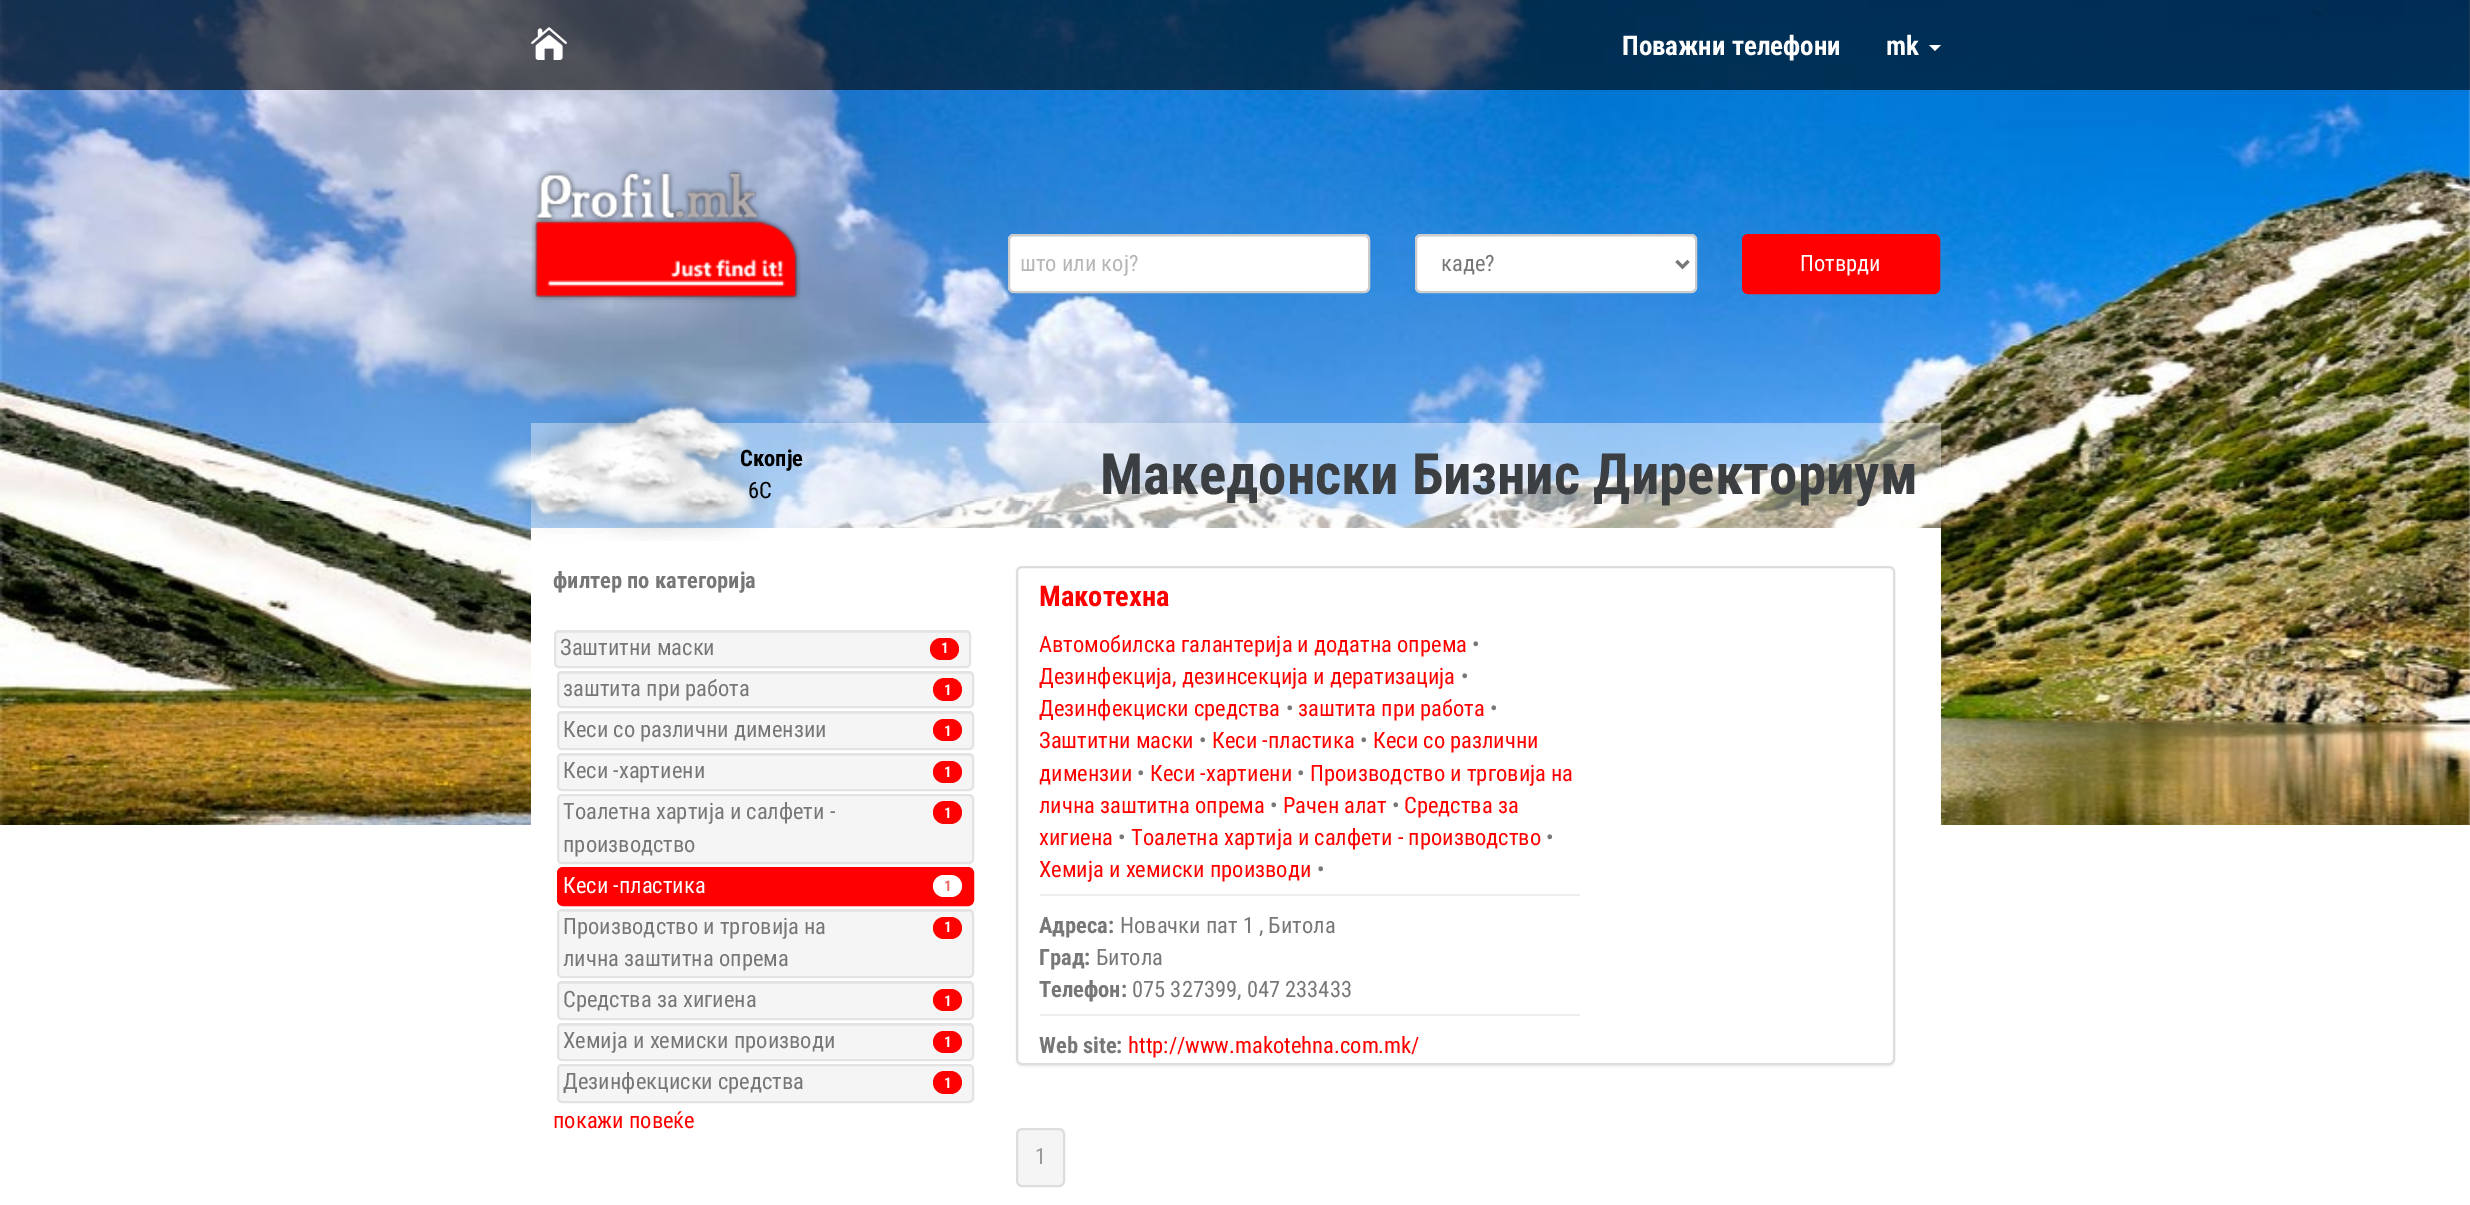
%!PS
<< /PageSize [2470 1205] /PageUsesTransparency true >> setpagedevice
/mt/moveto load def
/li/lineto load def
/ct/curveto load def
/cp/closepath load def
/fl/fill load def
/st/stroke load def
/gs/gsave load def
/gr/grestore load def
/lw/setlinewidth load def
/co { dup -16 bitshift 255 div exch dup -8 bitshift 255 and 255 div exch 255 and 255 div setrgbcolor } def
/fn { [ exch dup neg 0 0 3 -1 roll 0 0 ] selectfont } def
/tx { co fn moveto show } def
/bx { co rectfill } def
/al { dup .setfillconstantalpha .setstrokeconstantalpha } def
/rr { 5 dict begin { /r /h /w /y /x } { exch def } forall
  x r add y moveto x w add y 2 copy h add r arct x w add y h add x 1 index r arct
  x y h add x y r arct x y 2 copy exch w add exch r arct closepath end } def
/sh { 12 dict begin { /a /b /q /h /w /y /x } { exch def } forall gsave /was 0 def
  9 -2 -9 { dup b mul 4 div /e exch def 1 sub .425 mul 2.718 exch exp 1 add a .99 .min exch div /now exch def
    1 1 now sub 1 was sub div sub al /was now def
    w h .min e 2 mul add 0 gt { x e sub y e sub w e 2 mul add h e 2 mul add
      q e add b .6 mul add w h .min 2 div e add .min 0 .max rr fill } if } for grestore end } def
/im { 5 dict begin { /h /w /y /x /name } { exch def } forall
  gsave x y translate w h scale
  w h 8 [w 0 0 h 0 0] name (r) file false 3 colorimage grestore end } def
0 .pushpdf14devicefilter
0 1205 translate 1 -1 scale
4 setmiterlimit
0 0 2470 1205 16#FFFFFF bx
(media/1.raw) 0 0 2470 825 im
0.6 al
0 0 2470 90 16#000000 bx
1 al
(media/2.raw) 530 27 37 33 im
16#FFFFFF co
1929 45 mt 1941 45 li 1935 51 li cp fl
(media/3.raw) 531 168 270 135 im
1008 234 362 59 6 rr fl
16#ECECEC co
1014 237 mt 1364 237 li 1366 237 1368 239 1368 242 ct 1368 239 1366 236 1363 236 ct 1015 236 li 1012 236 1010 239 1010 242 ct 1010 239 1012 237 1014 237 ct cp fl
16#CCCCCC co
2 lw
1009 235 360 57 5 rr st
16#FFFFFF co
1415 234 282 59 6 rr fl
16#ECECEC co
1420 237 mt 1690 237 li 1693 237 1695 239 1695 242 ct 1695 241 li 1695 238 1693 236 1690 236 ct 1421 236 li 1418 236 1416 238 1416 241 ct 1416 242 li 1416 239 1418 237 1420 237 ct cp fl
16#CCCCCC co
1416 235 280 57 5 rr st
16#777777 co
3 lw
1676.5 261 mt 1682.5 267 li 1688.5 261 li st
16#FF0000 co
1743 235 196 58 5 rr gs fl gr
2 lw
st
0.4 al
531 423 1410 105 16#FFFFFF bx
1 al
531 528 1410 297 16#FFFFFF bx
(media/4.raw) 483 398 285 143 im
16#F5F5F5 co
554 630 417 38 5 rr fl
16#E9E9E9 co
558 633 mt 966 633 li 968 633 969 634 969 636 ct 969 634 968 632 966 632 ct 558 632 li 556 632 555 634 555 636 ct 555 634 556 633 558 633 ct cp fl
16#E3E3E3 co
555 631 415 36 4 rr st
16#FF0000 co
930 638 29 22 11 rr fl
16#F5F5F5 co
557 671 417 37 5 rr fl
16#E9E9E9 co
561 674 mt 969 674 li 971 674 972 675 972 676 ct 972 674 971 672 969 672 ct 561 672 li 559 672 558 674 558 676 ct 558 675 559 674 561 674 ct cp fl
16#E3E3E3 co
558 672 415 35 4 rr st
16#FF0000 co
933 678 29 23 11.5 rr fl
16#F5F5F5 co
557 711 417 39 5 rr fl
16#E9E9E9 co
561 714 mt 969 714 li 971 714 972 715 972 717 ct 972 715 971 713 969 713 ct 561 713 li 559 713 558 715 558 717 ct 558 715 559 714 561 714 ct cp fl
16#E3E3E3 co
558 712 415 37 4 rr st
16#FF0000 co
933 719 29 22 11 rr fl
16#F5F5F5 co
557 753 417 38 5 rr fl
16#E9E9E9 co
561 756 mt 969 756 li 971 756 972 757 972 759 ct 972 757 971 755 969 755 ct 561 755 li 559 755 558 757 558 759 ct 558 757 559 756 561 756 ct cp fl
16#E3E3E3 co
558 754 415 36 4 rr st
16#FF0000 co
933 761 29 22 11 rr fl
16#F5F5F5 co
557 794 417 70 5 rr fl
16#E9E9E9 co
561 796 mt 969 796 li 971 796 972 798 972 800 ct 972 798 li 972 796 971 795 969 795 ct 561 795 li 559 795 558 796 558 798 ct 558 800 li 558 798 559 796 561 796 ct cp fl
16#E3E3E3 co
558 795 415 68 4 rr st
16#FF0000 co
933 801 29 23 11.5 rr fl
558 868 415 37 5 rr gs fl gr
st
16#FFFFFF co
933 875 29 22 11 rr fl
16#F5F5F5 co
557 909 417 69 5 rr fl
16#E9E9E9 co
561 912 mt 969 912 li 971 912 972 913 972 915 ct 972 913 971 911 969 911 ct 561 911 li 559 911 558 913 558 915 ct 558 913 559 912 561 912 ct cp fl
16#E3E3E3 co
558 910 415 67 4 rr st
16#FF0000 co
933 917 29 22 11 rr fl
16#F5F5F5 co
557 981 417 39 5 rr fl
16#E9E9E9 co
561 984 mt 969 984 li 971 984 972 985 972 987 ct 972 985 971 983 969 983 ct 561 983 li 559 983 558 985 558 987 ct 558 985 559 984 561 984 ct cp fl
16#E3E3E3 co
558 982 415 37 4 rr st
16#FF0000 co
933 989 29 22 11 rr fl
16#F5F5F5 co
557 1023 417 38 5 rr fl
16#E9E9E9 co
561 1026 mt 969 1026 li 971 1026 972 1027 972 1029 ct 972 1027 971 1025 969 1025 ct 561 1025 li 559 1025 558 1027 558 1029 ct 558 1027 559 1026 561 1026 ct cp fl
16#E3E3E3 co
558 1024 415 36 4 rr st
16#FF0000 co
933 1031 29 22 11 rr fl
16#F5F5F5 co
557 1064 417 39 5 rr fl
16#E9E9E9 co
561 1066 mt 969 1066 li 971 1066 972 1068 972 1070 ct 972 1068 li 972 1066 971 1065 969 1065 ct 561 1065 li 559 1065 558 1066 558 1068 ct 558 1070 li 558 1068 559 1066 561 1066 ct cp fl
16#E3E3E3 co
558 1065 415 37 4 rr st
16#FF0000 co
933 1071 29 23 11.5 rr fl
16#000000 co
1016 567 879 500 6 1 .05 sh
16#FFFFFF co
1017 567 877 497 5 rr gs fl gr
16#DDDDDD co
st
1040 894 540 2 16#EEEEEE bx
1040 1014 540 2 16#EEEEEE bx
16#F5F5F5 co
1017 1129 47 57 5 rr gs fl gr
16#DDDDDD co
st
(Поважни телефони) 1622 55 /RobotoCondensed-Bold 27 16#FFFFFF tx
(mk) 1886 55 /RobotoCondensed-Bold 27 16#FFFFFF tx
(што или кој?) 1020 271 /RobotoCondensed-Regular 22.5 16#B6B6B6 tx
(каде?) 1441 271 /RobotoCondensed-Regular 22.5 16#777777 tx
(Потврди) 1800 271 /RobotoCondensed-Regular 22.5 16#FFFFFF tx
(Скопје) 740 466 /RobotoCondensed-Bold 22.5 16#000000 tx
(6C) 748 498 /RobotoCondensed-Regular 22.5 16#000000 tx
(Македонски Бизнис Директориум) 1100 494 /RobotoCondensed-Bold 57 16#3B3F42 tx
(филтер по категорија) 553 588 /RobotoCondensed-Bold 22.5 16#777777 tx
(Заштитни маски) 560 655 /RobotoCondensed-Regular 22.5 16#777777 tx
(1) 941 653 /RobotoCondensed-Bold 15 16#FFFFFF tx
(заштита при работа) 563 696 /RobotoCondensed-Regular 22.5 16#777777 tx
(1) 944 695 /RobotoCondensed-Bold 15 16#FFFFFF tx
(Кеси со различни димензии) 563 737 /RobotoCondensed-Regular 22.5 16#777777 tx
(1) 944 736 /RobotoCondensed-Bold 15 16#FFFFFF tx
(Кеси -хартиени) 563 778 /RobotoCondensed-Regular 22.5 16#777777 tx
(1) 944 777 /RobotoCondensed-Bold 15 16#FFFFFF tx
(Тоалетна хартија и салфети -) 563 819 /RobotoCondensed-Regular 22.5 16#777777 tx
(производство) 563 852 /RobotoCondensed-Regular 22.5 16#777777 tx
(1) 944 818 /RobotoCondensed-Bold 15 16#FFFFFF tx
(Кеси -пластика) 563 893 /RobotoCondensed-Regular 22.5 16#FFFFFF tx
(1) 944 891 /RobotoCondensed-Bold 15 16#EB6864 tx
(Производство и трговија на) 563 934 /RobotoCondensed-Regular 22.5 16#777777 tx
(лична заштитна опрема) 563 966 /RobotoCondensed-Regular 22.5 16#777777 tx
(1) 944 932 /RobotoCondensed-Bold 15 16#FFFFFF tx
(Средства за хигиена) 563 1007 /RobotoCondensed-Regular 22.5 16#777777 tx
(1) 944 1006 /RobotoCondensed-Bold 15 16#FFFFFF tx
(Хемија и хемиски производи) 563 1048 /RobotoCondensed-Regular 22.5 16#777777 tx
(1) 944 1047 /RobotoCondensed-Bold 15 16#FFFFFF tx
(Дезинфекциски средства) 563 1089 /RobotoCondensed-Regular 22.5 16#777777 tx
(1) 944 1088 /RobotoCondensed-Bold 15 16#FFFFFF tx
(покажи повеќе) 553 1128 /RobotoCondensed-Regular 22.5 16#FF0000 tx
(Макотехна) 1039 606 /RobotoCondensed-Bold 28.5 16#FF0000 tx
(Автомобилска галантерија и додатна опрема) 1039 652 /RobotoCondensed-Regular 22.5 16#FF0000 tx
(•) 1472 652 /RobotoCondensed-Regular 22.5 16#777777 tx
(Дезинфекција, дезинсекција и дератизација) 1039 684 /RobotoCondensed-Regular 22.5 16#FF0000 tx
(•) 1461 684 /RobotoCondensed-Regular 22.5 16#777777 tx
(Дезинфекциски средства) 1039 716 /RobotoCondensed-Regular 22.5 16#FF0000 tx
(•) 1286 716 /RobotoCondensed-Regular 22.5 16#777777 tx
(заштита при работа) 1298 716 /RobotoCondensed-Regular 22.5 16#FF0000 tx
(•) 1490 716 /RobotoCondensed-Regular 22.5 16#777777 tx
(Заштитни маски) 1039 748 /RobotoCondensed-Regular 22.5 16#FF0000 tx
(•) 1199 748 /RobotoCondensed-Regular 22.5 16#777777 tx
(Кеси -пластика) 1212 748 /RobotoCondensed-Regular 22.5 16#FF0000 tx
(•) 1360 748 /RobotoCondensed-Regular 22.5 16#777777 tx
(Кеси со различни) 1373 748 /RobotoCondensed-Regular 22.5 16#FF0000 tx
(димензии) 1039 781 /RobotoCondensed-Regular 22.5 16#FF0000 tx
(•) 1137 781 /RobotoCondensed-Regular 22.5 16#777777 tx
(Кеси -хартиени) 1150 781 /RobotoCondensed-Regular 22.5 16#FF0000 tx
(•) 1297 781 /RobotoCondensed-Regular 22.5 16#777777 tx
(Производство и трговија на) 1310 781 /RobotoCondensed-Regular 22.5 16#FF0000 tx
(лична заштитна опрема) 1039 813 /RobotoCondensed-Regular 22.5 16#FF0000 tx
(•) 1270 813 /RobotoCondensed-Regular 22.5 16#777777 tx
(Рачен алат) 1283 813 /RobotoCondensed-Regular 22.5 16#FF0000 tx
(•) 1392 813 /RobotoCondensed-Regular 22.5 16#777777 tx
(Средства за) 1404 813 /RobotoCondensed-Regular 22.5 16#FF0000 tx
(хигиена) 1039 845 /RobotoCondensed-Regular 22.5 16#FF0000 tx
(•) 1118 845 /RobotoCondensed-Regular 22.5 16#777777 tx
(Тоалетна хартија и салфети - производство) 1131 845 /RobotoCondensed-Regular 22.5 16#FF0000 tx
(•) 1546 845 /RobotoCondensed-Regular 22.5 16#777777 tx
(Хемија и хемиски производи) 1039 877 /RobotoCondensed-Regular 22.5 16#FF0000 tx
(•) 1317 877 /RobotoCondensed-Regular 22.5 16#777777 tx
(Адреса:) 1039 933 /RobotoCondensed-Bold 22.5 16#777777 tx
(Новачки пат 1 , Битола) 1120 933 /RobotoCondensed-Regular 22.5 16#777777 tx
(Град:) 1039 965 /RobotoCondensed-Bold 22.5 16#777777 tx
(Битола) 1096 965 /RobotoCondensed-Regular 22.5 16#777777 tx
(Телефон:) 1039 997 /RobotoCondensed-Bold 22.5 16#777777 tx
(075 327399, 047 233433) 1132 997 /RobotoCondensed-Regular 22.5 16#777777 tx
(Web site:) 1039 1053 /RobotoCondensed-Bold 22.5 16#777777 tx
(http://www.makotehna.com.mk/) 1128 1053 /RobotoCondensed-Regular 22.5 16#FF0000 tx
(1) 1035 1164 /RobotoCondensed-Regular 22.5 16#999999 tx
.poppdf14devicefilter showpage
